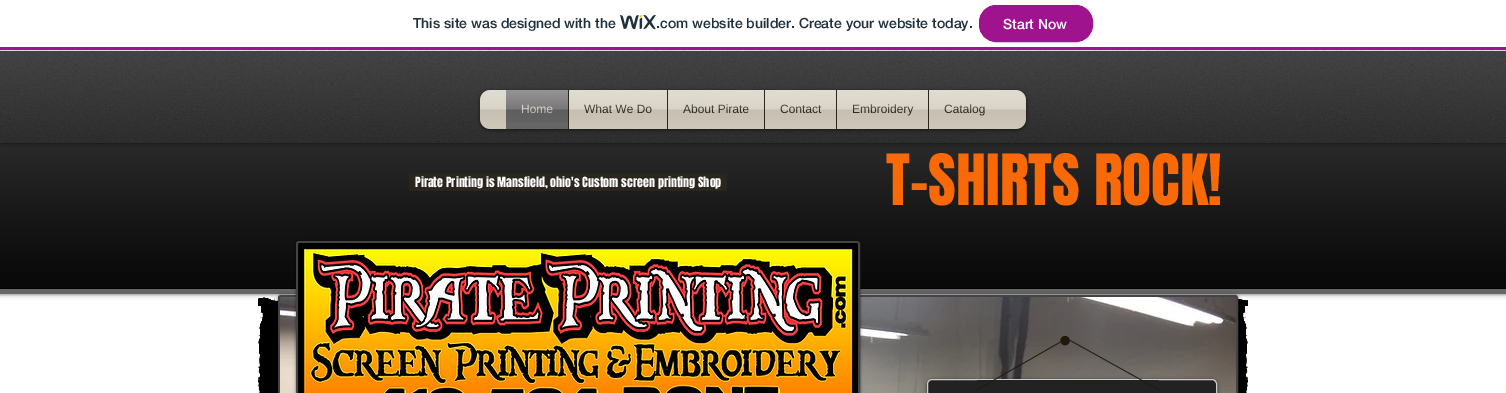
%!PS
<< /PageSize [1506 393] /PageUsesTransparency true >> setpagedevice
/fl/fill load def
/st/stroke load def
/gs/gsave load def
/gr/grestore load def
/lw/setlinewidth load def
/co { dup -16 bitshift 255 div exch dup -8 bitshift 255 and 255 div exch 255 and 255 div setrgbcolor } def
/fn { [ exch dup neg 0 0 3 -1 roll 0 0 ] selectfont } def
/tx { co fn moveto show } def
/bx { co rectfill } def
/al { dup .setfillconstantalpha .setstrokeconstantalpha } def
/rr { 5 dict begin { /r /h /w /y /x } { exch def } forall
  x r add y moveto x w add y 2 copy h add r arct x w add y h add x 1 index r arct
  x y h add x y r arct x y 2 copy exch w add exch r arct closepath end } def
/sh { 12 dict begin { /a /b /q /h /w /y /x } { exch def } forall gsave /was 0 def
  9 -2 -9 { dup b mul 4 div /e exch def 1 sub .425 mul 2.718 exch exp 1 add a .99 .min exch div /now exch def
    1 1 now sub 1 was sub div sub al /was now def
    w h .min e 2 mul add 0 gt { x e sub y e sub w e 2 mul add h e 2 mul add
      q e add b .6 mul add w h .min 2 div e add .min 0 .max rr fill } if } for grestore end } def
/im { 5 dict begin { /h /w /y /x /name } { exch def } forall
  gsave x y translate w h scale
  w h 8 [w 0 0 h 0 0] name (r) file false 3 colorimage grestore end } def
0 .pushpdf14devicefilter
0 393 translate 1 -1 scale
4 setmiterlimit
0 0 1506 393 16#FFFFFF bx
16#000000 co
0 50 1506 244 0 2.5 .6 sh
0 51 1506 237 16#000000 bx
(media/2.raw) 0 51 1506 237 im
0 50 1506 1 16#E0E0E0 bx
gs
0 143 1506 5 rectclip
16#000000 co
0 50 1506 93 0 2.5 .7 sh
gr
0 44 1506 3 16#FFFFFF bx
0 47 1506 3 16#A0138E bx
(media/1.raw) 620 15 36 15 im
979.5 5.5 113 36 16.5 rr gs fl gr
st
0 288 1506 1 16#030303 bx
0 289 1506 5 16#666666 bx
(media/3.raw) 0 50 1506 93 im
16#000000 co
480 91 546 39 10 2 .6 sh
16#D4CDBF co
480 90 546 39 10 rr fl
(media/4.raw) 480 90 546 39 im
506 90 62 39 16#666666 bx
569 90 98 39 16#D4CDBF bx
568 90 1 39 16#2A261E bx
668 90 96 39 16#D4CDBF bx
667 90 1 39 16#2A261E bx
765 90 71 39 16#D4CDBF bx
764 90 1 39 16#2A261E bx
837 90 91 39 16#D4CDBF bx
836 90 1 39 16#2A261E bx
929 90 71 39 16#D4CDBF bx
928 90 1 39 16#2A261E bx
409 173 318 18 16#2A261E bx
266 306 974 87 16#000000 bx
(media/14.raw) 258 297 990 9 im
(media/16.raw) 1240 306 8 87 im
278 295 960 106 3 1.5 .5 sh
16#444444 co
279 296 958 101 2 rr gs fl gr
2 lw
st
(media/12.raw) 280 297 956 96 im
16#000000 co
296 241 564 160 3 1.5 .5 sh
16#444444 co
297 242 562 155 2 rr gs fl gr
st
(media/11.raw) 298 243 560 150 im
16#000000 co
927 380 290 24 5 2 .6 sh
16#222222 co
927.5 379.5 289 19 4.5 rr gs fl gr
16#CCCCCC co
1 lw
st
(media/13.raw) 977 336 182 54 im
(media/15.raw) 258 306 8 87 im
(This site was designed with the) 413 28 /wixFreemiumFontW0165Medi-Medium 14 16#20303C tx
(.com website builder. Create your website today.) 656 28 /wixFreemiumFontW0165Medi-Medium 14 16#20303C tx
(Start Now) 1003 29 /wixFreemiumFontW0165Medi-Medium 14 16#FFFFFF tx
(Home) 521 113 /LiberationSans-Regular 12 16#D4CDBF tx
(media/5.raw) 506 90 62 33 im
(What We Do) 584 113 /LiberationSans-Regular 12 16#2A261E tx
(media/6.raw) 569 90 98 39 im
(About Pirate) 683 113 /LiberationSans-Regular 12 16#2A261E tx
(media/7.raw) 668 90 96 39 im
(Contact) 780 113 /LiberationSans-Regular 12 16#2A261E tx
(media/8.raw) 765 90 71 39 im
(Embroidery) 852 113 /LiberationSans-Regular 12 16#2A261E tx
(media/9.raw) 837 90 91 39 im
(Catalog) 944 113 /LiberationSans-Regular 12 16#2A261E tx
(media/10.raw) 929 90 71 39 im
(Pirate Printing is Mansfield, ohio's Custom screen printing Shop) 415 187 /Anton-Regular 12 16#FFFFFF tx
(T-SHIRTS ROCK!) 886 205 /Anton-Regular 60 16#FA6907 tx
.poppdf14devicefilter showpage
